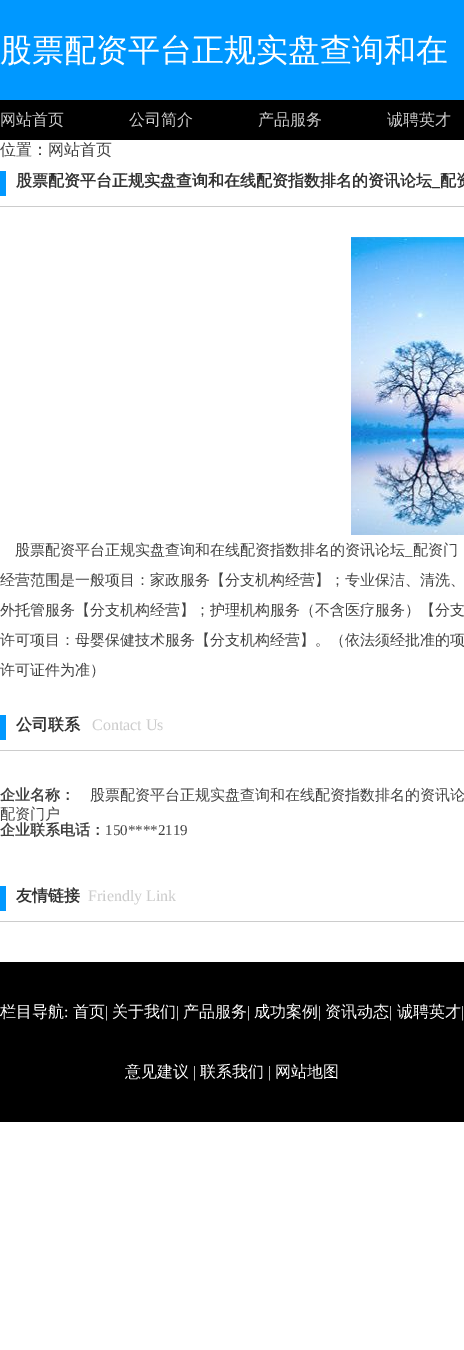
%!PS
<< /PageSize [464 1350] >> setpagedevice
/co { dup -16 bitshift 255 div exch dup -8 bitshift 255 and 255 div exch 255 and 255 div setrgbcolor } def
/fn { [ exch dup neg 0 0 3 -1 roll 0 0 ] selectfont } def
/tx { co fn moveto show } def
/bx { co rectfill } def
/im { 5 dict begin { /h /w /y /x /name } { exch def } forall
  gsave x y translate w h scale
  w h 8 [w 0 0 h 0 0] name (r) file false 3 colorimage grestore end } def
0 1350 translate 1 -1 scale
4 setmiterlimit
0 0 464 1350 16#FFFFFF bx
0 0 464 100 16#0098FF bx
0 100 464 40 16#000000 bx
0 206 464 1 16#CCCCCC bx
0 171 6 25 16#0098FF bx
(media/1.raw) 351 237 113 298 im
0 750 464 1 16#CCCCCC bx
0 715 6 25 16#0098FF bx
0 921 464 1 16#CCCCCC bx
0 886 6 25 16#0098FF bx
0 962 464 160 16#000000 bx
(股票配资平台正规实盘查询和在) 0 61 /WenQuanYiZenHei-Medium 32 16#FFFFFF tx
(网站首页) 0 125 /WenQuanYiZenHei-Medium 16 16#CCCCCC tx
(公司简介) 129 125 /WenQuanYiZenHei-Medium 16 16#CCCCCC tx
(产品服务) 258 125 /WenQuanYiZenHei-Medium 16 16#CCCCCC tx
(诚聘英才) 387 125 /WenQuanYiZenHei-Medium 16 16#CCCCCC tx
(位置：网站首页) 0 155 /WenQuanYiZenHei-Medium 16 16#414141 tx
(股票配资平台正规实盘查询和在线配资指数排名的资讯论坛) 16 186 /WenQuanYiZenHei-Bold 16 16#333333 tx
(_) 432 186 /LiberationSerif-Bold 16 16#333333 tx
(配资) 440 186 /WenQuanYiZenHei-Bold 16 16#333333 tx
(股票配资平台正规实盘查询和在线配资指数排名的资讯论坛) 15 555 /WenQuanYiZenHei-Medium 15 16#414141 tx
(_) 405 555 /LiberationSerif-Regular 15 16#414141 tx
(配资门) 413 555 /WenQuanYiZenHei-Medium 15 16#414141 tx
(经营范围是一般项目：家政服务【分支机构经营】；专业保洁、清洗、) 0 585 /WenQuanYiZenHei-Medium 15 16#414141 tx
(外托管服务【分支机构经营】；护理机构服务（不含医疗服务）【分支) 0 615 /WenQuanYiZenHei-Medium 15 16#414141 tx
(许可项目：母婴保健技术服务【分支机构经营】。（依法须经批准的项) 0 645 /WenQuanYiZenHei-Medium 15 16#414141 tx
(许可证件为准）) 0 675 /WenQuanYiZenHei-Medium 15 16#414141 tx
(公司联系) 16 730 /WenQuanYiZenHei-Bold 16 16#333333 tx
(Contact Us) 92 730 /LiberationSerif-Regular 16 16#CCCCCC tx
(企业名称：) 0 800 /WenQuanYiZenHei-Bold 15 16#414141 tx
(股票配资平台正规实盘查询和在线配资指数排名的资讯论) 90 800 /WenQuanYiZenHei-Medium 15 16#414141 tx
(配资门户) 0 819 /WenQuanYiZenHei-Medium 15 16#414141 tx
(企业联系电话：) 0 835 /WenQuanYiZenHei-Bold 15 16#414141 tx
(150****2119) 105 835 /LiberationSerif-Regular 15 16#414141 tx
(友情链接) 16 901 /WenQuanYiZenHei-Bold 16 16#333333 tx
(Friendly Link) 88 901 /LiberationSerif-Regular 16 16#CCCCCC tx
(栏目导航) 0 1017 /WenQuanYiZenHei-Medium 16 16#FFFFFF tx
(:) 64 1017 /LiberationSerif-Regular 16 16#FFFFFF tx
(首页) 73 1017 /WenQuanYiZenHei-Medium 16 16#FFFFFF tx
(|) 105 1017 /LiberationSerif-Regular 16 16#FFFFFF tx
(关于我们) 112 1017 /WenQuanYiZenHei-Medium 16 16#FFFFFF tx
(|) 176 1017 /LiberationSerif-Regular 16 16#FFFFFF tx
(产品服务) 183 1017 /WenQuanYiZenHei-Medium 16 16#FFFFFF tx
(|) 247 1017 /LiberationSerif-Regular 16 16#FFFFFF tx
(成功案例) 254 1017 /WenQuanYiZenHei-Medium 16 16#FFFFFF tx
(|) 318 1017 /LiberationSerif-Regular 16 16#FFFFFF tx
(资讯动态) 325 1017 /WenQuanYiZenHei-Medium 16 16#FFFFFF tx
(|) 389 1017 /LiberationSerif-Regular 16 16#FFFFFF tx
(诚聘英才) 397 1017 /WenQuanYiZenHei-Medium 16 16#FFFFFF tx
(|) 461 1017 /LiberationSerif-Regular 16 16#FFFFFF tx
(意见建议) 125 1077 /WenQuanYiZenHei-Medium 16 16#FFFFFF tx
(|) 193 1077 /LiberationSerif-Regular 16 16#FFFFFF tx
(联系我们) 200 1077 /WenQuanYiZenHei-Medium 16 16#FFFFFF tx
(|) 268 1077 /LiberationSerif-Regular 16 16#FFFFFF tx
(网站地图) 275 1077 /WenQuanYiZenHei-Medium 16 16#FFFFFF tx
showpage
